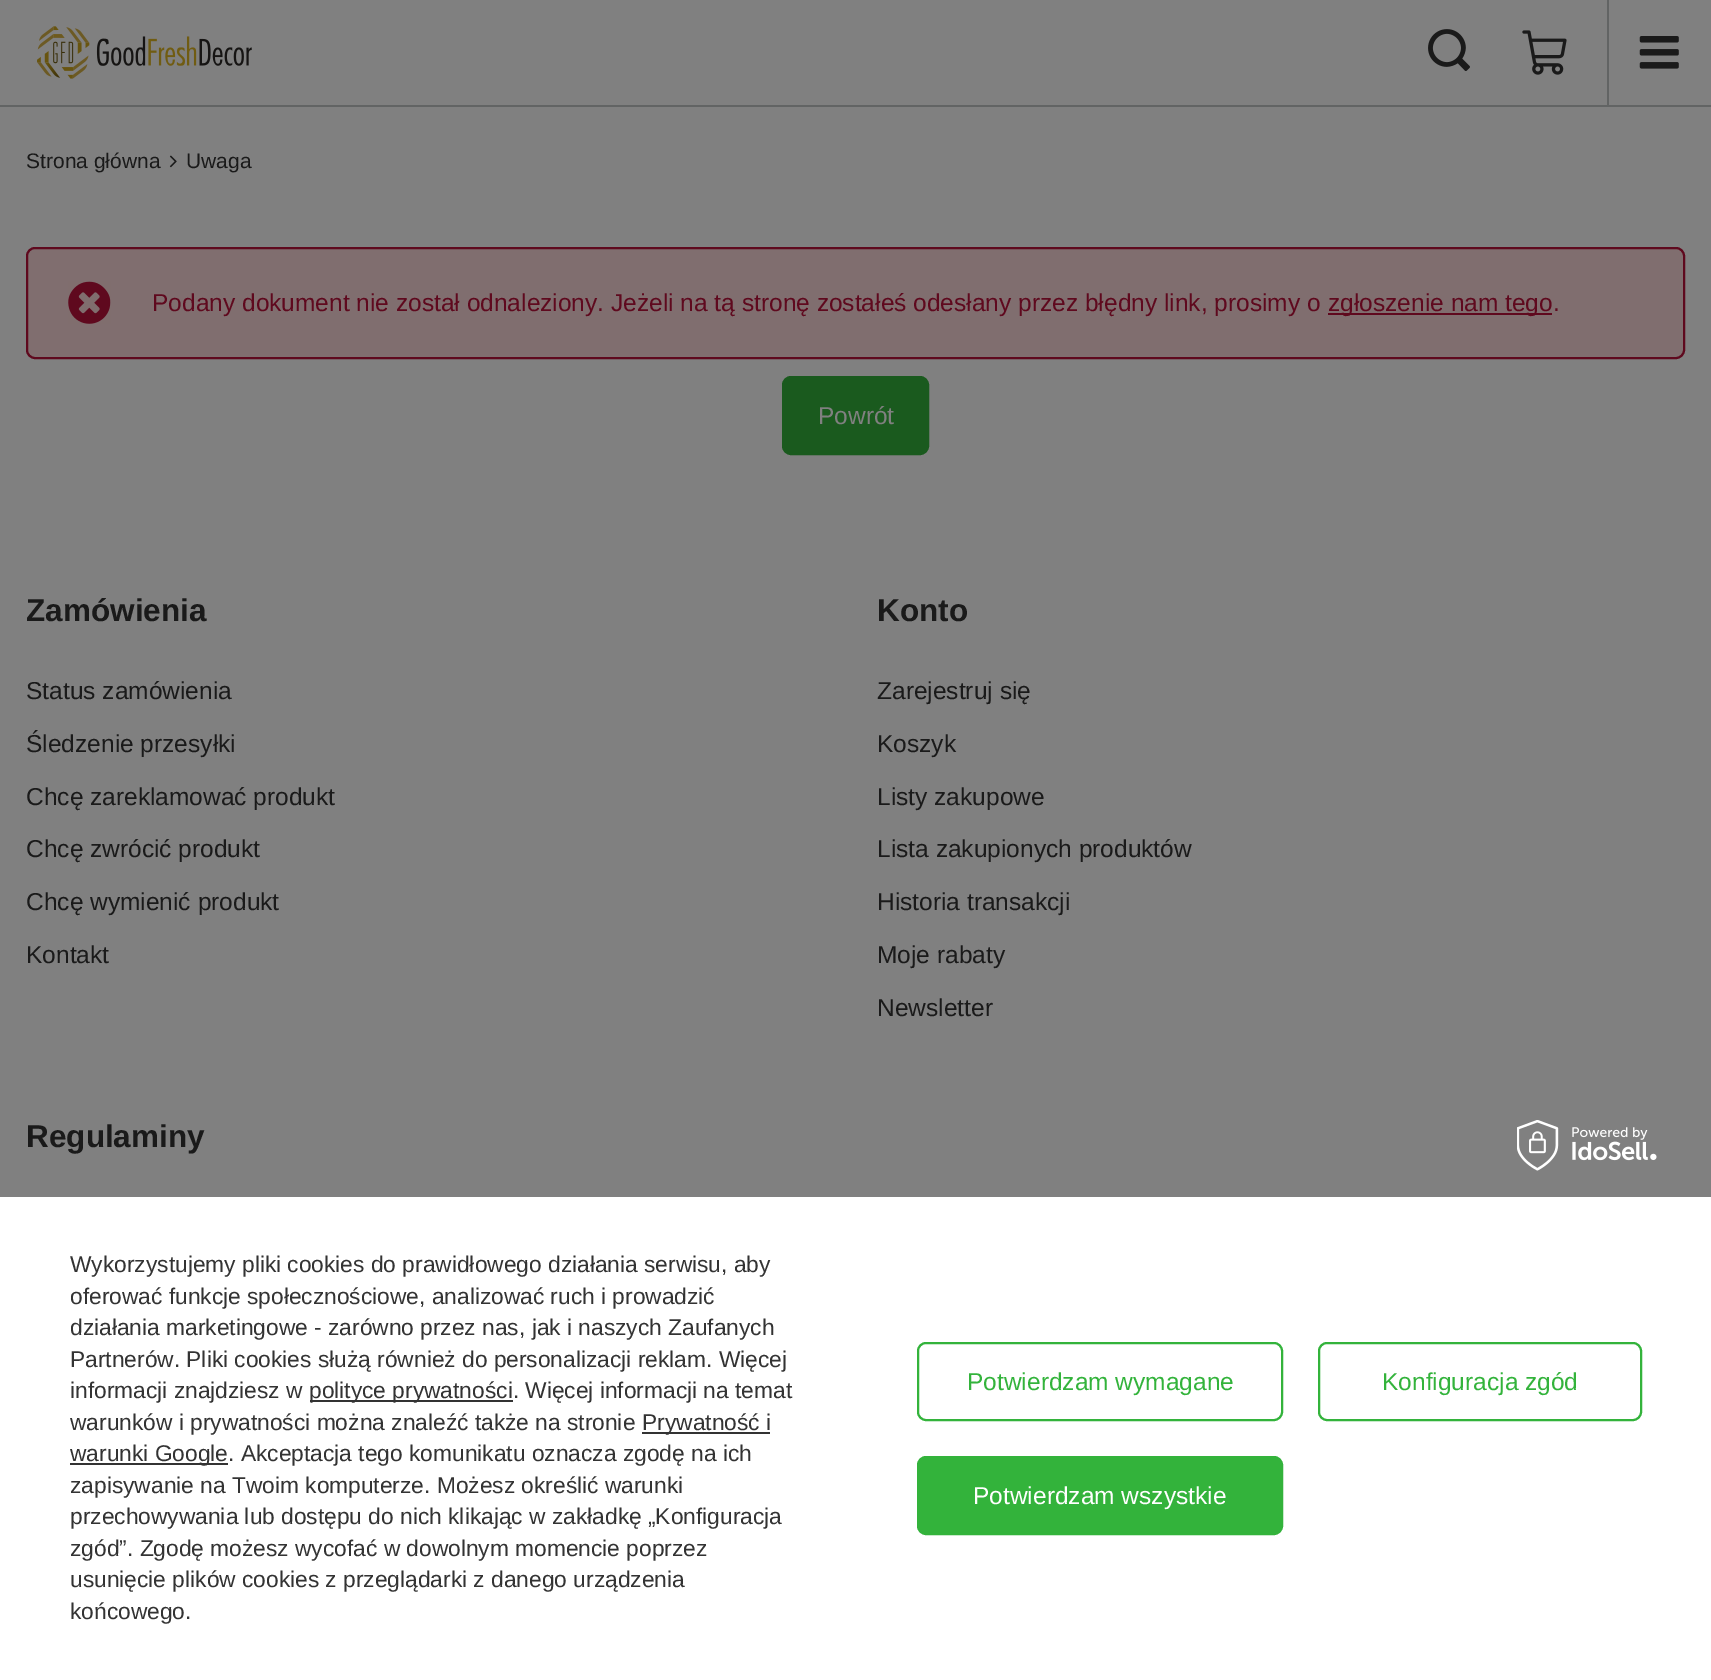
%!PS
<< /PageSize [1711 1680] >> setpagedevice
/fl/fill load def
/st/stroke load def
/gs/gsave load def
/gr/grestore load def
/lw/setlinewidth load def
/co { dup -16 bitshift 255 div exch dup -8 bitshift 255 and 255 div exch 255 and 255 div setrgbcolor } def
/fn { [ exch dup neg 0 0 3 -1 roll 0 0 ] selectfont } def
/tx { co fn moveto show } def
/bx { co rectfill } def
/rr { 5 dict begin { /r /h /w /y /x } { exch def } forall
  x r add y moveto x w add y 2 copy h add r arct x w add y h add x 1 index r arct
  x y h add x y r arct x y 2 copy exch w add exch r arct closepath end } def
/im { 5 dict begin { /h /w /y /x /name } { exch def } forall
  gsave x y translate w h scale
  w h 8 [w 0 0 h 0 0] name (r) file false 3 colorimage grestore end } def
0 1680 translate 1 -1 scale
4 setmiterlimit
0 0 1711 1680 16#808080 bx
0 105 1711 2 16#626464 bx
(media/1.raw) 37 26 215 53 im
(media/2.raw) 1428 29 42 42 im
(media/3.raw) 1522 30 45 45 im
1607 0 2 105 16#626464 bx
(media/4.raw) 1639 36 40 33 im
(media/5.raw) 169 155 8 13 im
16#806E6F co
27 248 1657 110 8 rr gs fl gr
16#5F091E co
2 lw
st
(media/6.raw) 68 281 43 43 im
1328 313 224 2 16#5F091E bx
16#1A5A1E co
783 377 145 77 8 rr gs fl gr
st
0 1197 1711 483 16#FFFFFF bx
(media/7.raw) 1517 1120 140 51 im
310 1400 203 2 16#333333 bx
642 1432 128 2 16#333333 bx
70 1463 158 2 16#333333 bx
16#33B33B co
918 1343 364 77 8 rr st
1319 1343 322 77 8 rr st
918 1457 364 77 8 rr gs fl gr
st
(Strona główna) 26 168 /LiberationSans-Regular 21 16#1A1A1A tx
(Uwaga) 186 168 /LiberationSans-Regular 21 16#1A1A1A tx
(Podany dokument nie został odnaleziony. Jeżeli na tą stronę zostałeś odesłany przez błędny link, prosimy o) 152 311 /LiberationSans-Regular 24.5 16#5F091E tx
(zgłoszenie nam tego.) 1328 311 /LiberationSans-Regular 24.5 16#5F091E tx
(Powrót) 818 424 /LiberationSans-Regular 24.5 16#808080 tx
(Zamówienia) 26 621 /LiberationSans-Bold 31.5 16#1A1A1A tx
(Status zamówienia) 26 699 /LiberationSans-Regular 24.5 16#1A1A1A tx
(Śledzenie przesyłki) 26 752 /LiberationSans-Regular 24.5 16#1A1A1A tx
(Chcę zareklamować produkt) 26 805 /LiberationSans-Regular 24.5 16#1A1A1A tx
(Chcę zwrócić produkt) 26 857 /LiberationSans-Regular 24.5 16#1A1A1A tx
(Chcę wymienić produkt) 26 910 /LiberationSans-Regular 24.5 16#1A1A1A tx
(Kontakt) 26 963 /LiberationSans-Regular 24.5 16#1A1A1A tx
(Konto) 877 621 /LiberationSans-Bold 31.5 16#1A1A1A tx
(Zarejestruj się) 877 699 /LiberationSans-Regular 24.5 16#1A1A1A tx
(Koszyk) 877 752 /LiberationSans-Regular 24.5 16#1A1A1A tx
(Listy zakupowe) 877 805 /LiberationSans-Regular 24.5 16#1A1A1A tx
(Lista zakupionych produktów) 877 857 /LiberationSans-Regular 24.5 16#1A1A1A tx
(Historia transakcji) 877 910 /LiberationSans-Regular 24.5 16#1A1A1A tx
(Moje rabaty) 877 963 /LiberationSans-Regular 24.5 16#1A1A1A tx
(Newsletter) 877 1016 /LiberationSans-Regular 24.5 16#1A1A1A tx
(Regulaminy) 26 1147 /LiberationSans-Bold 31.5 16#1A1A1A tx
(Wykorzystujemy pliki cookies do prawidłowego działania serwisu, aby) 70 1272 /LiberationSans-Regular 22.75 16#333333 tx
(oferować funkcje społecznościowe, analizować ruch i prowadzić) 70 1304 /LiberationSans-Regular 22.75 16#333333 tx
(działania marketingowe - zarówno przez nas, jak i naszych Zaufanych) 70 1335 /LiberationSans-Regular 22.75 16#333333 tx
(Partnerów. Pliki cookies służą również do personalizacji reklam. Więcej) 70 1367 /LiberationSans-Regular 22.75 16#333333 tx
(informacji znajdziesz w) 70 1398 /LiberationSans-Regular 22.75 16#333333 tx
(polityce prywatności. Więcej informacji na temat) 309 1398 /LiberationSans-Regular 22.75 16#333333 tx
(warunków i prywatności można znaleźć także na stronie) 70 1430 /LiberationSans-Regular 22.75 16#333333 tx
(Prywatność i) 642 1430 /LiberationSans-Regular 22.75 16#333333 tx
(warunki Google. Akceptacja tego komunikatu oznacza zgodę na ich) 70 1461 /LiberationSans-Regular 22.75 16#333333 tx
(zapisywanie na Twoim komputerze. Możesz określić warunki) 70 1493 /LiberationSans-Regular 22.75 16#333333 tx
(przechowywania lub dostępu do nich klikając w zakładkę „Konfiguracja) 70 1524 /LiberationSans-Regular 22.75 16#333333 tx
(zgód”. Zgodę możesz wycofać w dowolnym momencie poprzez) 70 1556 /LiberationSans-Regular 22.75 16#333333 tx
(usunięcie plików cookies z przeglądarki z danego urządzenia) 70 1587 /LiberationSans-Regular 22.75 16#333333 tx
(końcowego.) 70 1619 /LiberationSans-Regular 22.75 16#333333 tx
(Potwierdzam wymagane) 967 1390 /LiberationSans-Regular 24.5 16#33B33B tx
(Konfiguracja zgód) 1382 1390 /LiberationSans-Regular 24.5 16#33B33B tx
(Potwierdzam wszystkie) 973 1504 /LiberationSans-Regular 24.5 16#FFFFFF tx
showpage
